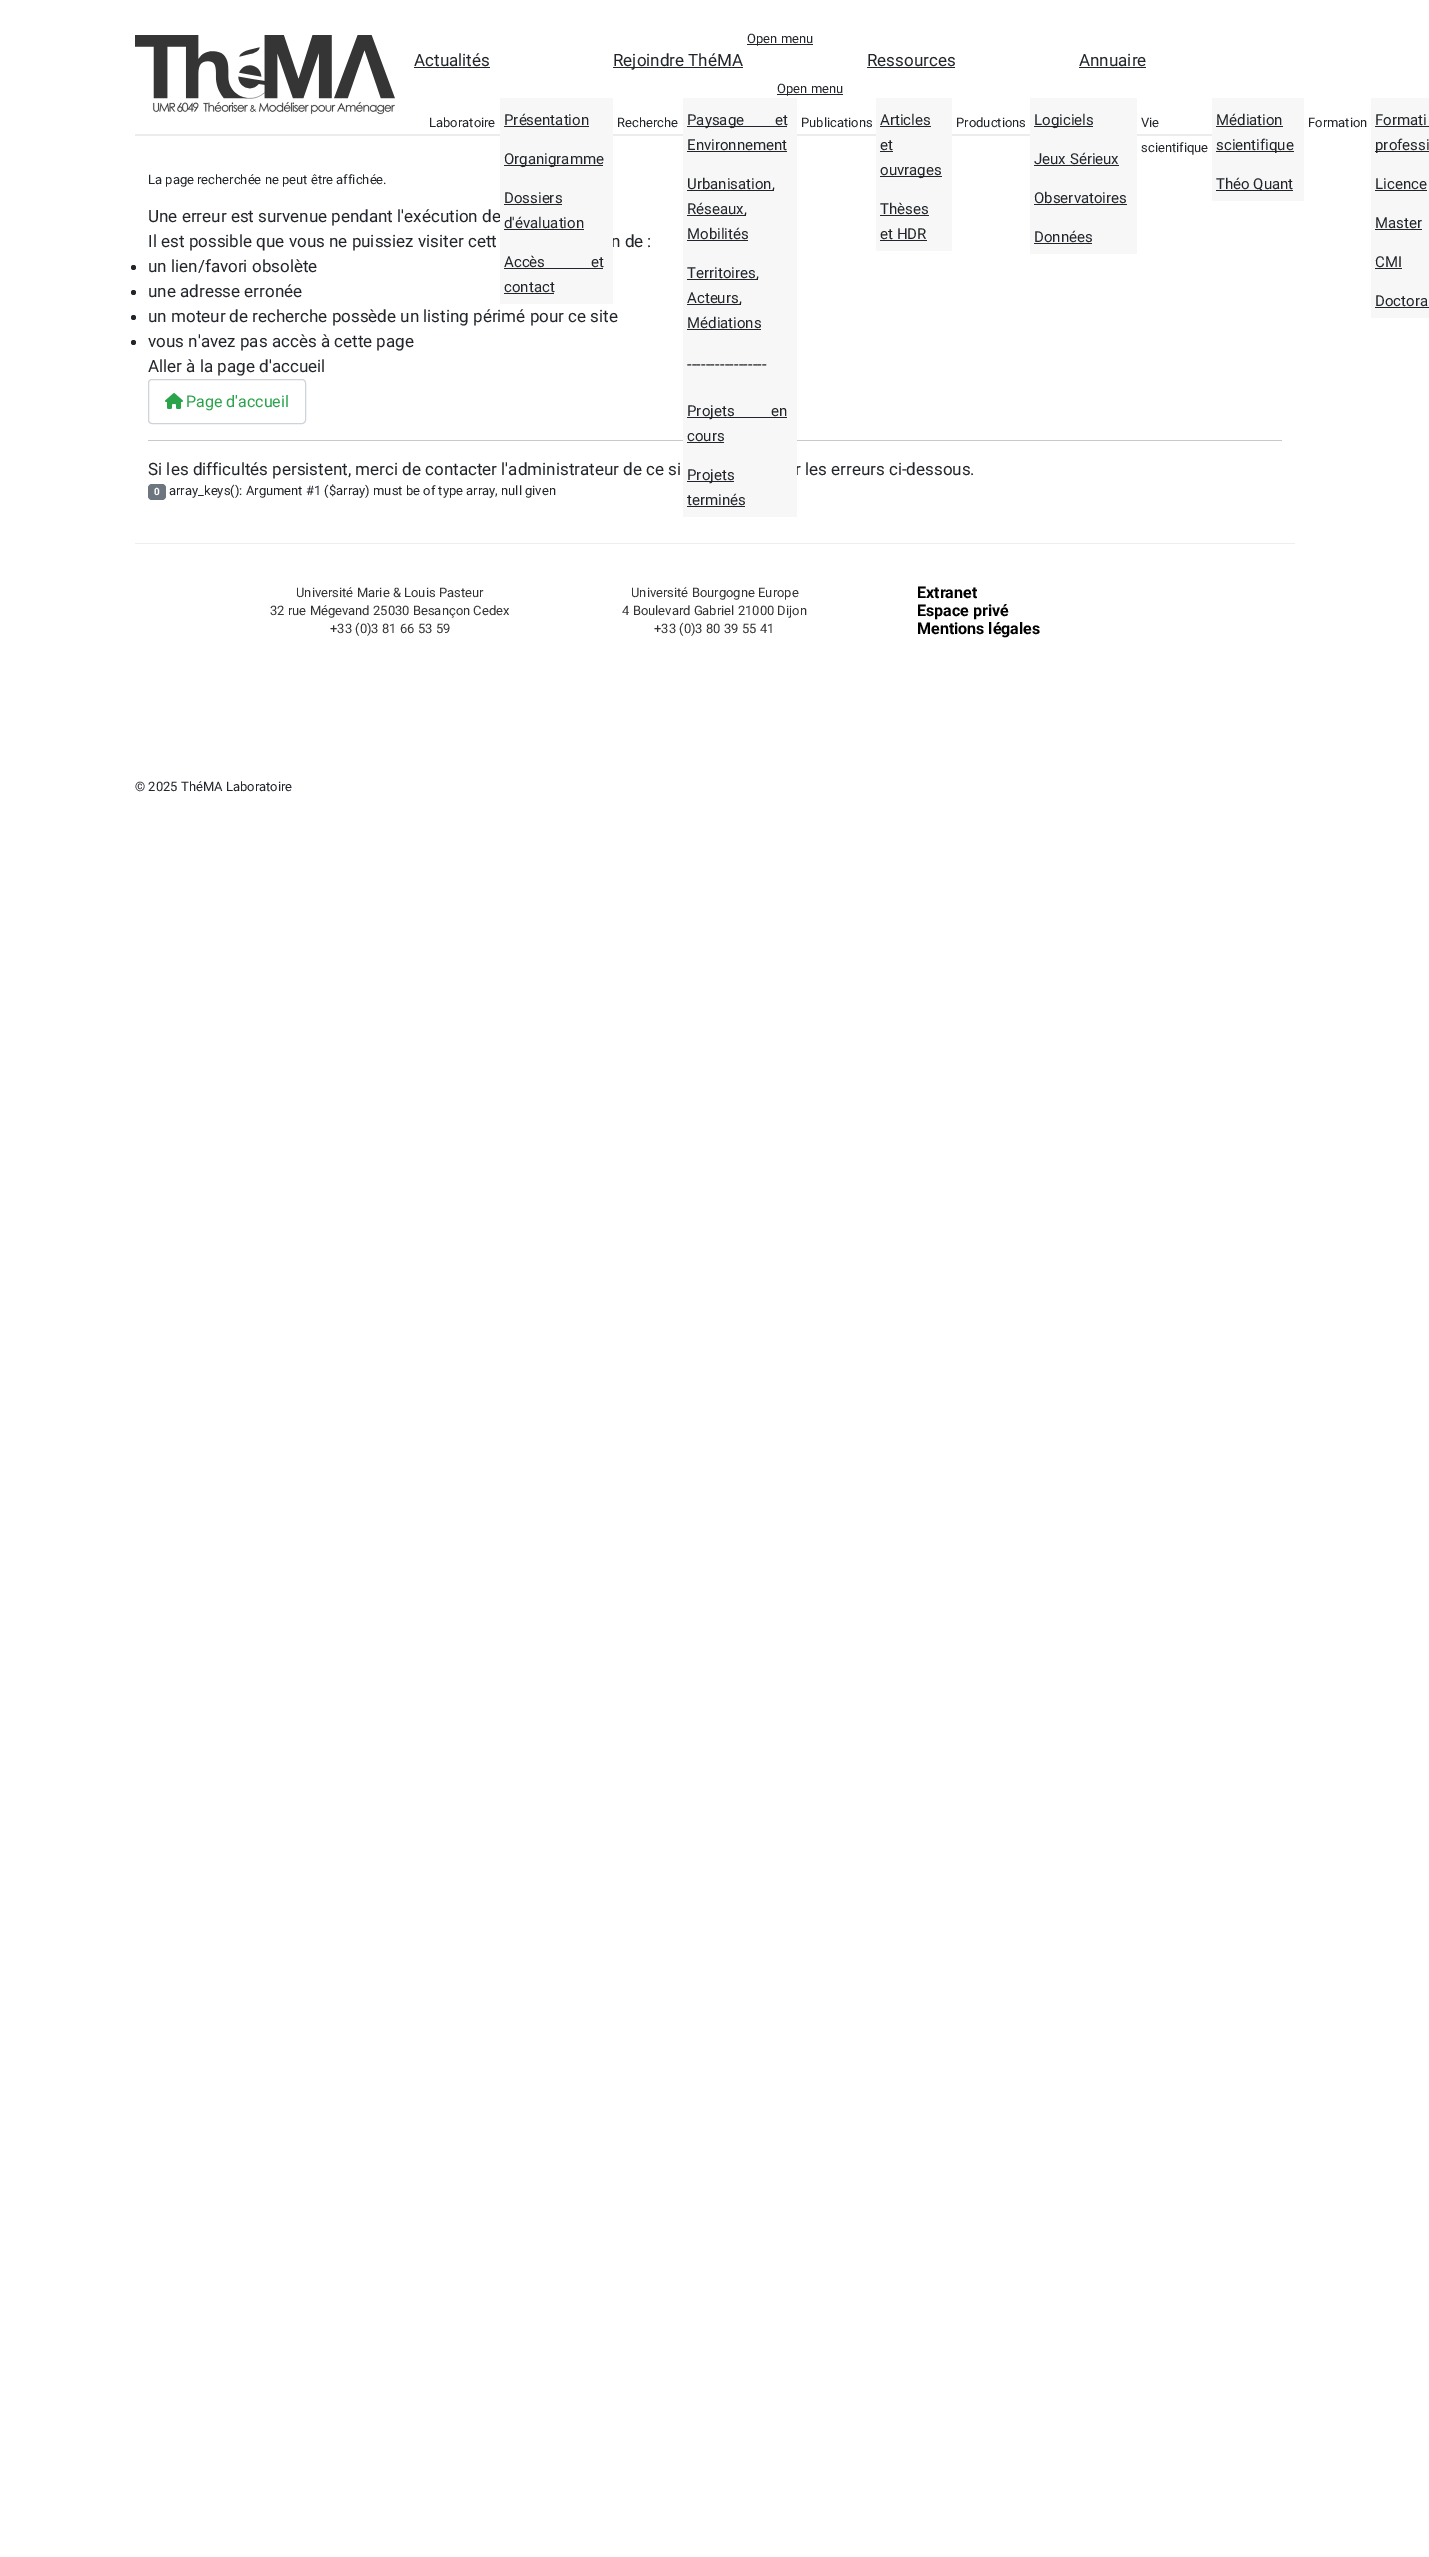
%!PS
<< /PageSize [1429 2557] >> setpagedevice
/mt/moveto load def
/fl/fill load def
/st/stroke load def
/co { dup -16 bitshift 255 div exch dup -8 bitshift 255 and 255 div exch 255 and 255 div setrgbcolor } def
/fn { [ exch dup neg 0 0 3 -1 roll 0 0 ] selectfont } def
/tx { co fn moveto show } def
/bx { co rectfill } def
/ci { newpath 0 360 arc closepath } def
/rr { 5 dict begin { /r /h /w /y /x } { exch def } forall
  x r add y moveto x w add y 2 copy h add r arct x w add y h add x 1 index r arct
  x y h add x y r arct x y 2 copy exch w add exch r arct closepath end } def
/im { 5 dict begin { /h /w /y /x /name } { exch def } forall
  gsave x y translate w h scale
  w h 8 [w 0 0 h 0 0] name (r) file false 3 colorimage grestore end } def
0 2557 translate 1 -1 scale
4 setmiterlimit
0 0 1429 2557 16#FFFFFF bx
(media/1.raw) 135 35 260 80 im
747 44 66 1 16#22262A bx
414 67 76 1 16#22262A bx
613 67 130 1 16#22262A bx
867 67 88 1 16#22262A bx
1079 67 67 1 16#22262A bx
777 94 66 1 16#22262A bx
135 134 1077 2 16#ECECEC bx
876 98 76 153 16#F7F7F7 bx
880 126 51 1 16#22262A bx
880 151 13 1 16#22262A bx
880 176 62 1 16#22262A bx
880 215 49 1 16#22262A bx
880 240 47 1 16#22262A bx
1030 98 107 156 16#F7F7F7 bx
1034 126 59 1 16#22262A bx
1034 165 85 1 16#22262A bx
1034 204 93 1 16#22262A bx
1034 243 58 1 16#22262A bx
1212 98 92 103 16#F7F7F7 bx
1216 126 67 1 16#22262A bx
1216 151 78 1 16#22262A bx
1216 190 77 1 16#22262A bx
1371 98 58 220 16#F7F7F7 bx
1375 126 54 1 16#22262A bx
1375 151 54 1 16#22262A bx
1375 190 52 1 16#22262A bx
1375 229 47 1 16#22262A bx
1375 268 27 1 16#22262A bx
1375 307 54 1 16#22262A bx
133.5 267.5 2.5 ci fl
133.5 292.5 2.5 ci fl
133.5 317.5 2.5 ci fl
133.5 342.5 2.5 ci fl
16#CED4DA co
148.5 379.5 157 44 3.5 rr st
(media/2.raw) 165 393 18 16 im
148 440 1134 1 16#C8C9CA bx
16#6D757E co
148 484 18 16 4 rr fl
135 543 1160 1 16#EEEEEE bx
(Open menu) 747 43 /Roboto-Regular 13 16#22262A tx
(Actualités) 414 66 /Roboto-Regular 17 16#22262A tx
(Rejoindre ThéMA) 613 66 /Roboto-Regular 17 16#22262A tx
(Ressources) 867 66 /Roboto-Regular 17 16#22262A tx
(Annuaire) 1079 66 /Roboto-Regular 17 16#22262A tx
(Open menu) 777 93 /Roboto-Regular 13 16#22262A tx
(Laboratoire) 429 127 /Roboto-Regular 13 16#22262A tx
(Recherche) 617 127 /Roboto-Regular 13 16#22262A tx
(Publications) 801 127 /Roboto-Regular 13 16#22262A tx
(Articles) 880 125 /Roboto-Regular 15 16#22262A tx
(et) 880 150 /Roboto-Regular 15 16#22262A tx
(ouvrages) 880 175 /Roboto-Regular 15 16#22262A tx
(Thèses) 880 214 /Roboto-Regular 15 16#22262A tx
(et HDR) 880 239 /Roboto-Regular 15 16#22262A tx
(Productions) 956 127 /Roboto-Regular 13 16#22262A tx
(Logiciels) 1034 125 /Roboto-Regular 15 16#22262A tx
(Jeux Sérieux) 1034 164 /Roboto-Regular 15 16#22262A tx
(Observatoires) 1034 203 /Roboto-Regular 15 16#22262A tx
(Données) 1034 242 /Roboto-Regular 15 16#22262A tx
(Vie) 1141 127 /Roboto-Regular 13 16#22262A tx
(scientifique) 1141 152 /Roboto-Regular 13 16#22262A tx
(Médiation) 1216 125 /Roboto-Regular 15 16#22262A tx
(scientifique) 1216 150 /Roboto-Regular 15 16#22262A tx
(Théo Quant) 1216 189 /Roboto-Regular 15 16#22262A tx
(Formation) 1308 127 /Roboto-Regular 13 16#22262A tx
(Formati) 1375 125 /Roboto-Regular 15 16#22262A tx
(professi) 1375 150 /Roboto-Regular 15 16#22262A tx
(Licence) 1375 189 /Roboto-Regular 15 16#22262A tx
(Master) 1375 228 /Roboto-Regular 15 16#22262A tx
(CMI) 1375 267 /Roboto-Regular 15 16#22262A tx
(Doctora) 1375 306 /Roboto-Regular 15 16#22262A tx
(La page recherchée ne peut être affichée.) 148 184 /Roboto-Regular 13 16#22262A tx
(Une erreur est survenue pendant l'exécution de) 148 222 /Roboto-Regular 17 16#22262A tx
(Il est possible que vous ne puissiez visiter cett) 148 247 /Roboto-Regular 17 16#22262A tx
(n de :) 611 247 /Roboto-Regular 17 16#22262A tx
500 98 113 206 16#F7F7F7 bx
(contact) 504 292 /Roboto-Regular 15 16#22262A tx
504 293 50 1 16#22262A bx
504 267 mt 42 0 32 (Accès et) widthshow
504 268 99 1 16#22262A bx
(d'évaluation) 504 228 /Roboto-Regular 15 16#22262A tx
504 229 80 1 16#22262A bx
(Dossiers) 504 203 /Roboto-Regular 15 16#22262A tx
504 204 58 1 16#22262A bx
504 165 99 1 16#22262A bx
(Organigramme) 504 164 /Roboto-Regular 15 16#22262A tx
(Présentation) 504 125 /Roboto-Regular 15 16#22262A tx
504 126 85 1 16#22262A bx
(un lien/favori obsolète) 148 272 /Roboto-Regular 17 16#22262A tx
(une adresse erronée) 148 297 /Roboto-Regular 17 16#22262A tx
(un moteur de recherche possède un listing périmé pour ce site) 148 322 /Roboto-Regular 17 16#22262A tx
(vous n'avez pas accès à cette page) 148 347 /Roboto-Regular 17 16#22262A tx
(Aller à la page d'accueil) 148 372 /Roboto-Regular 17 16#22262A tx
(Page d'accueil) 186 407 /Roboto-Regular 16 16#2AA34B tx
(Si les difficultés persistent, merci de contacter l'administrateur de ce si) 148 475 /Roboto-Regular 17 16#22262A tx
(r les erreurs ci-dessous.) 795 475 /Roboto-Regular 17 16#22262A tx
683 98 114 419 16#F7F7F7 bx
(terminés) 687 505 /Roboto-Regular 15 16#22262A tx
687 506 58 1 16#22262A bx
687 481 47 1 16#22262A bx
(Projets) 687 480 /Roboto-Regular 15 16#22262A tx
(cours) 687 441 /Roboto-Regular 15 16#22262A tx
687 442 37 1 16#22262A bx
687 417 100 1 16#22262A bx
687 416 mt 33 0 32 (Projets en) widthshow
(-----------------) 687 370 /Roboto-Regular 17 16#22262A tx
(Médiations) 687 328 /Roboto-Regular 15 16#22262A tx
687 329 74 1 16#22262A bx
687 304 54 1 16#22262A bx
(Acteurs,) 687 303 /Roboto-Regular 15 16#22262A tx
687 279 71 1 16#22262A bx
(Territoires,) 687 278 /Roboto-Regular 15 16#22262A tx
(Mobilités) 687 239 /Roboto-Regular 15 16#22262A tx
687 240 61 1 16#22262A bx
687 215 59 1 16#22262A bx
(Réseaux,) 687 214 /Roboto-Regular 15 16#22262A tx
687 190 87 1 16#22262A bx
(Urbanisation,) 687 189 /Roboto-Regular 15 16#22262A tx
(Environnement) 687 150 /Roboto-Regular 15 16#22262A tx
687 151 100 1 16#22262A bx
687 126 100 1 16#22262A bx
687 125 mt 27 0 32 (Paysage et) widthshow
(0) 154 495 /Roboto-Bold 10 16#FFFFFF tx
(array_keys\(\): Argument #1 \($array\) must be of type array, null given) 169 495 /Roboto-Regular 13 16#22262A tx
(Université Marie & Louis Pasteur) 296 597 /Roboto-Regular 13 16#333333 tx
(32 rue Mégevand 25030 Besançon Cedex) 270 615 /Roboto-Regular 13 16#333333 tx
(+33 \(0\)3 81 66 53 59) 330 633 /Roboto-Regular 13 16#333333 tx
(Université Bourgogne Europe) 631 597 /Roboto-Regular 13 16#333333 tx
(4 Boulevard Gabriel 21000 Dijon) 622 615 /Roboto-Regular 13 16#333333 tx
(+33 \(0\)3 80 39 55 41) 654 633 /Roboto-Regular 13 16#333333 tx
(Extranet) 917 598 /Roboto-Bold 16 16#000000 tx
(Espace privé) 917 616 /Roboto-Bold 16 16#000000 tx
(Mentions légales) 917 634 /Roboto-Bold 16 16#000000 tx
(© 2025 ThéMA Laboratoire) 135 791 /Roboto-Regular 13 16#22262A tx
showpage
